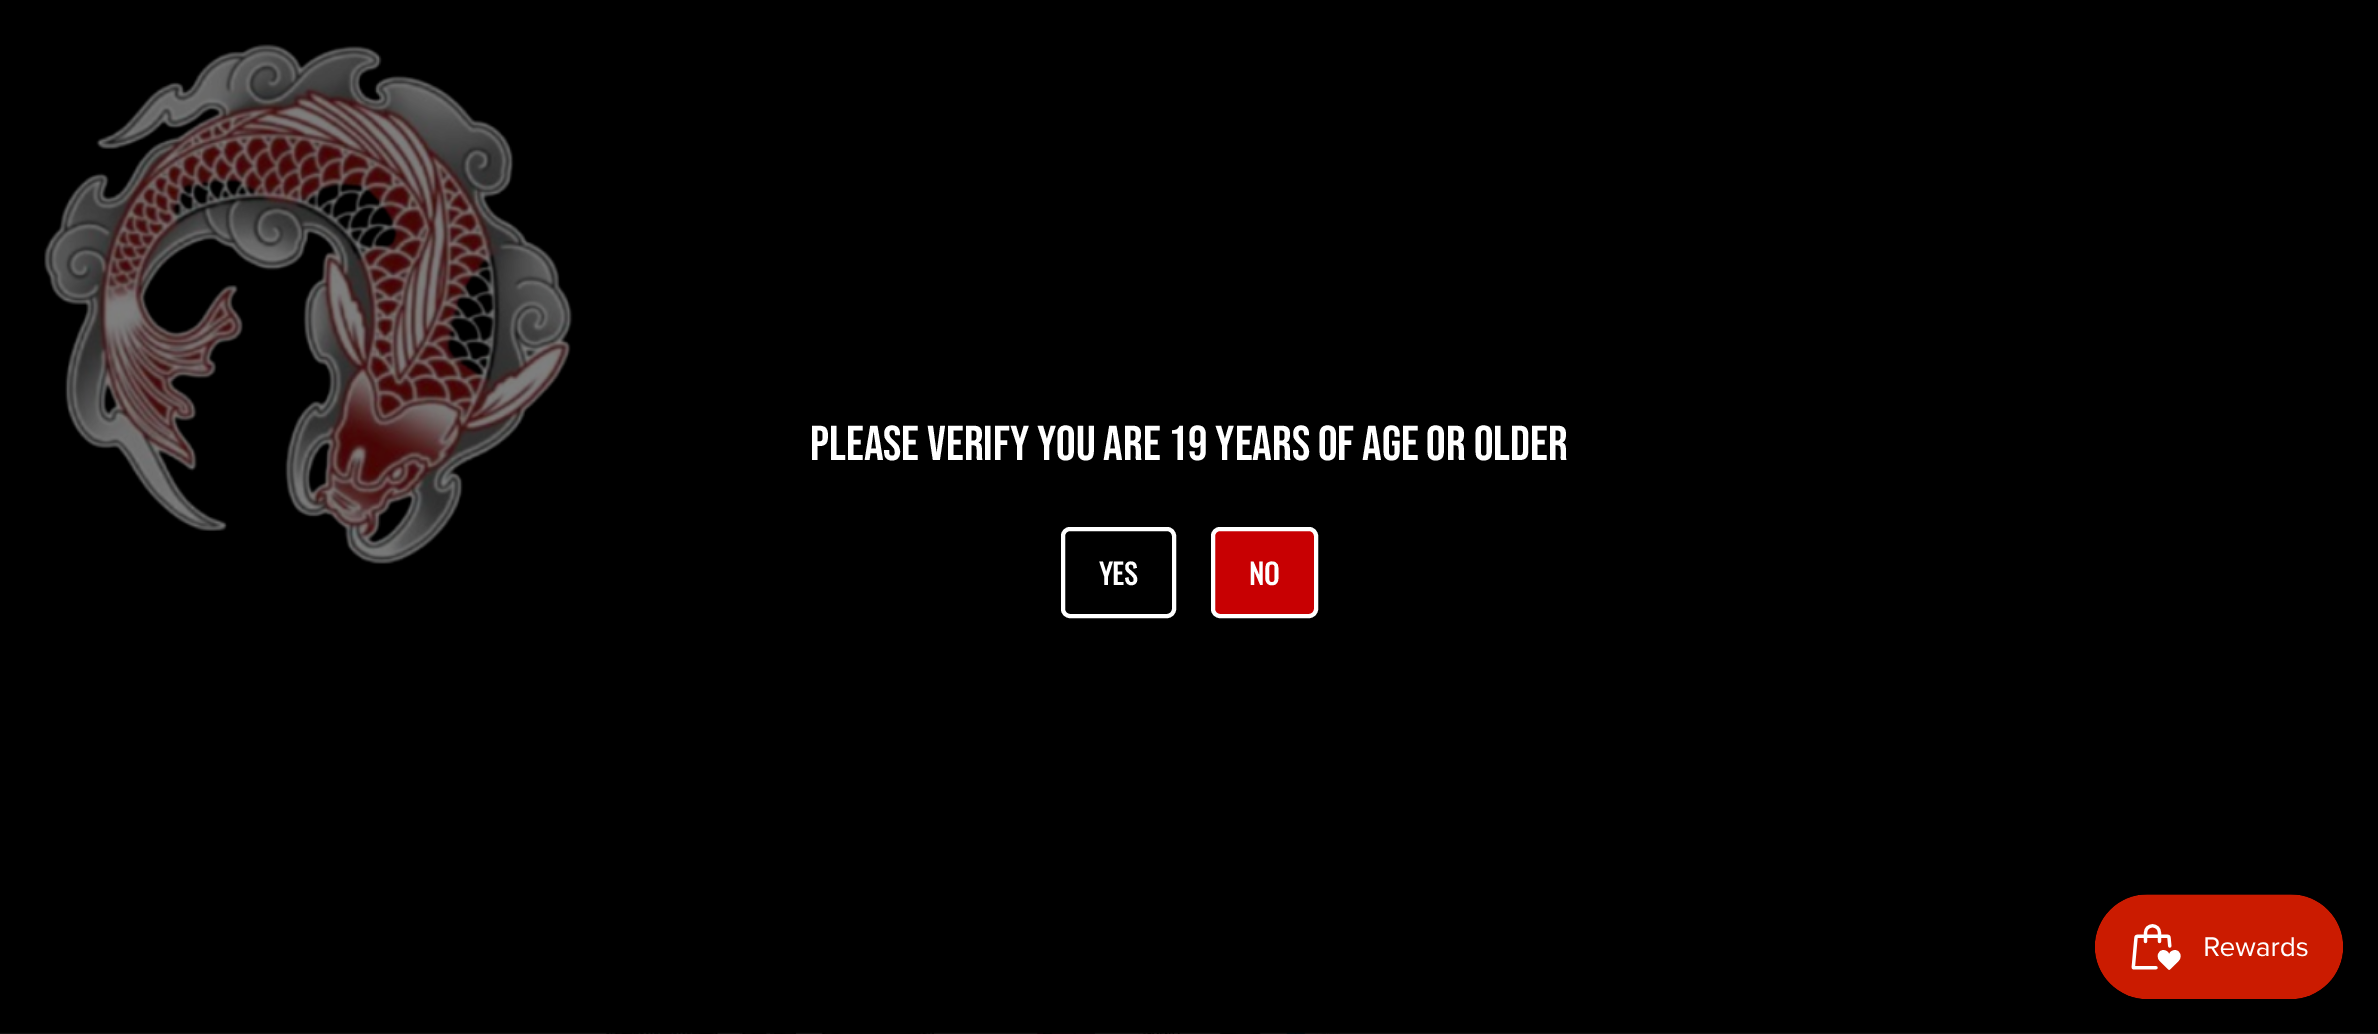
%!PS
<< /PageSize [2378 1034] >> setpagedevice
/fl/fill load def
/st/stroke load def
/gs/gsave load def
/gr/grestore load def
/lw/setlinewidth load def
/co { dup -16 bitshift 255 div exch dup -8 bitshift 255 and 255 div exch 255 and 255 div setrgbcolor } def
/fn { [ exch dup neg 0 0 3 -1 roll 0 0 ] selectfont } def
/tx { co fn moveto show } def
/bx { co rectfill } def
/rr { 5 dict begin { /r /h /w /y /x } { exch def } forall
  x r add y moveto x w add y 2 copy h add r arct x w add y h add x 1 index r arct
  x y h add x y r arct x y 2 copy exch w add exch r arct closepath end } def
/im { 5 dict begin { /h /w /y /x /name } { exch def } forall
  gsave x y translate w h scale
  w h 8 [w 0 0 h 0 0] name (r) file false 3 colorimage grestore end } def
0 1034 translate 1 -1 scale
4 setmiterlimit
0 0 2378 1034 16#FFFFFF bx
(media/3.raw) 602 1032 338 2 im
(media/4.raw) 1006 1032 347 2 im
(media/1.raw) 0 0 2378 1034 im
4 lw
1063 529 111 87 7 rr st
16#C80002 co
1213 529 103 87 7 rr gs fl gr
16#FFFFFF co
st
(media/2.raw) 2095 894 248 105 im
(Please verify you are 19 years of age or older) 810 460 /BebasNeue-Regular 49 16#FFFFFF tx
(YES) 1099 585 /Oswald-Bold 28 16#FFFFFF tx
(NO) 1249 585 /Oswald-Bold 28 16#FFFFFF tx
showpage
